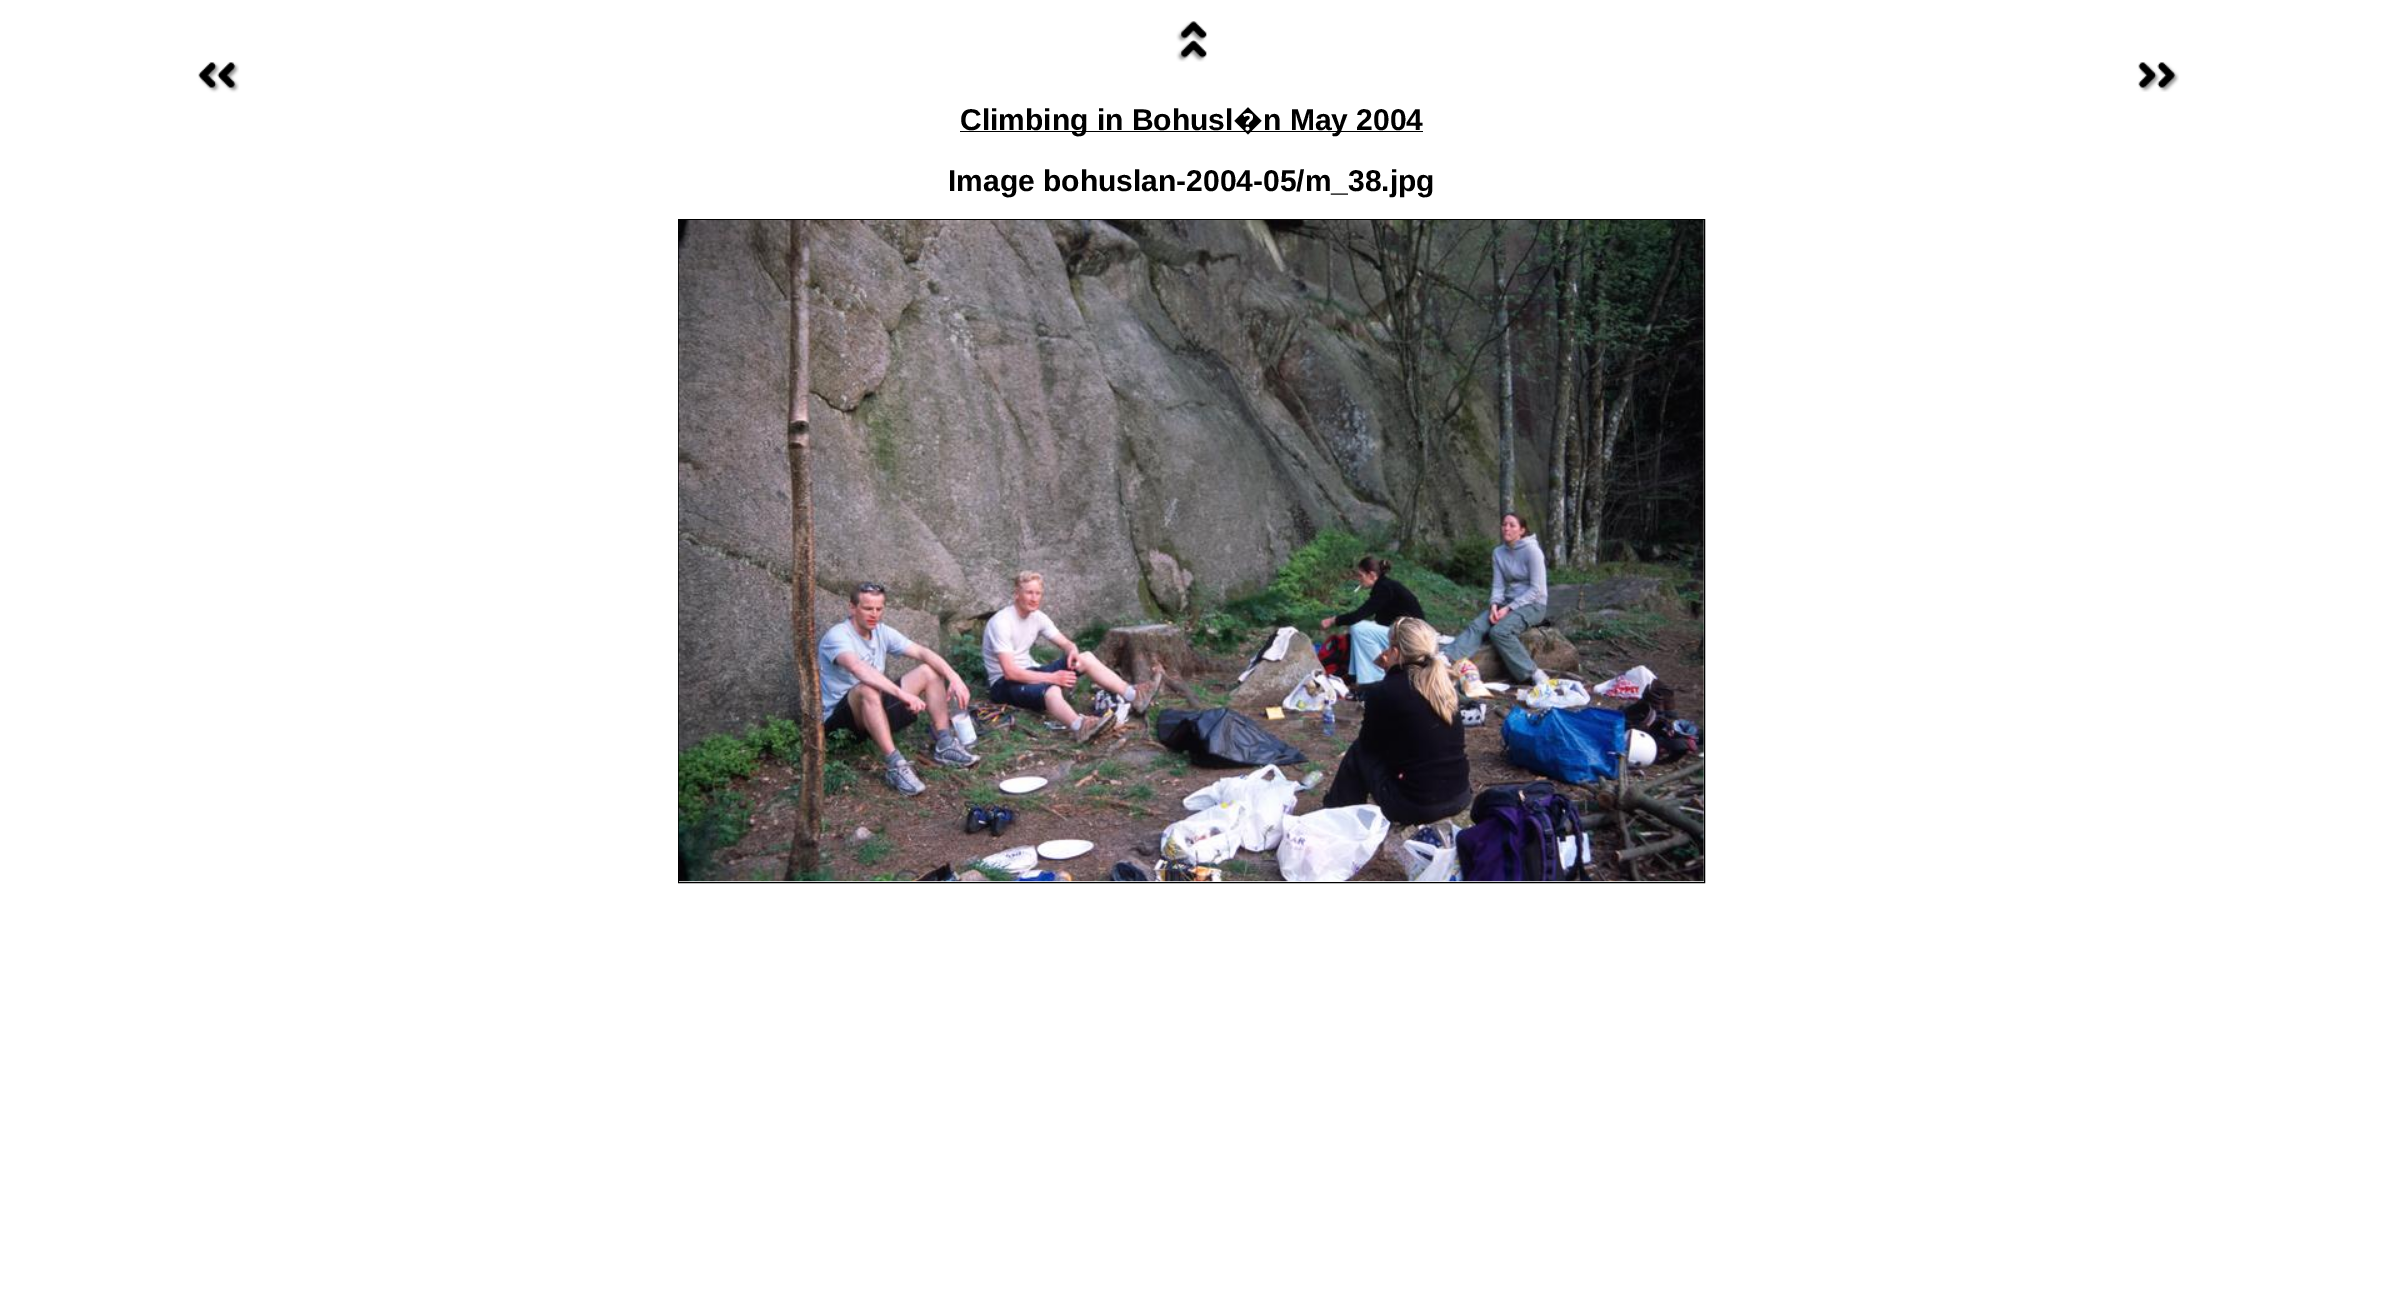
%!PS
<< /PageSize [2382 1305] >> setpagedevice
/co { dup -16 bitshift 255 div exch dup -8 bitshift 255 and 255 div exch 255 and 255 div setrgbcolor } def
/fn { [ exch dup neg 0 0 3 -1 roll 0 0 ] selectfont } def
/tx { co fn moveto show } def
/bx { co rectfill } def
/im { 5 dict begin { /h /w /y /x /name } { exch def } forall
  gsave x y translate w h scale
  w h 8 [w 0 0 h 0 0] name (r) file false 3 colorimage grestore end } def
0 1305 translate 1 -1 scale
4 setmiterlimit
0 0 2382 1305 16#FFFFFF bx
(media/1.raw) 198 62 41 31 im
(media/2.raw) 2138 62 41 30 im
(media/3.raw) 1176 21 31 41 im
960 131 463 1 16#000000 bx
678.5 219.5 1026 663 rectstroke
(media/4.raw) 678 220 1026 662 im
(Climbing in Bohusl) 960 130 /LiberationSans-Bold 30 16#000000 tx
(�) 1233 130 /NotoSans-Bold 30 16#000000 tx
(n May 2004) 1263 130 /LiberationSans-Bold 30 16#000000 tx
(Image bohuslan-2004-05/m_38.jpg) 948 191 /LiberationSans-Bold 30 16#000000 tx
showpage
